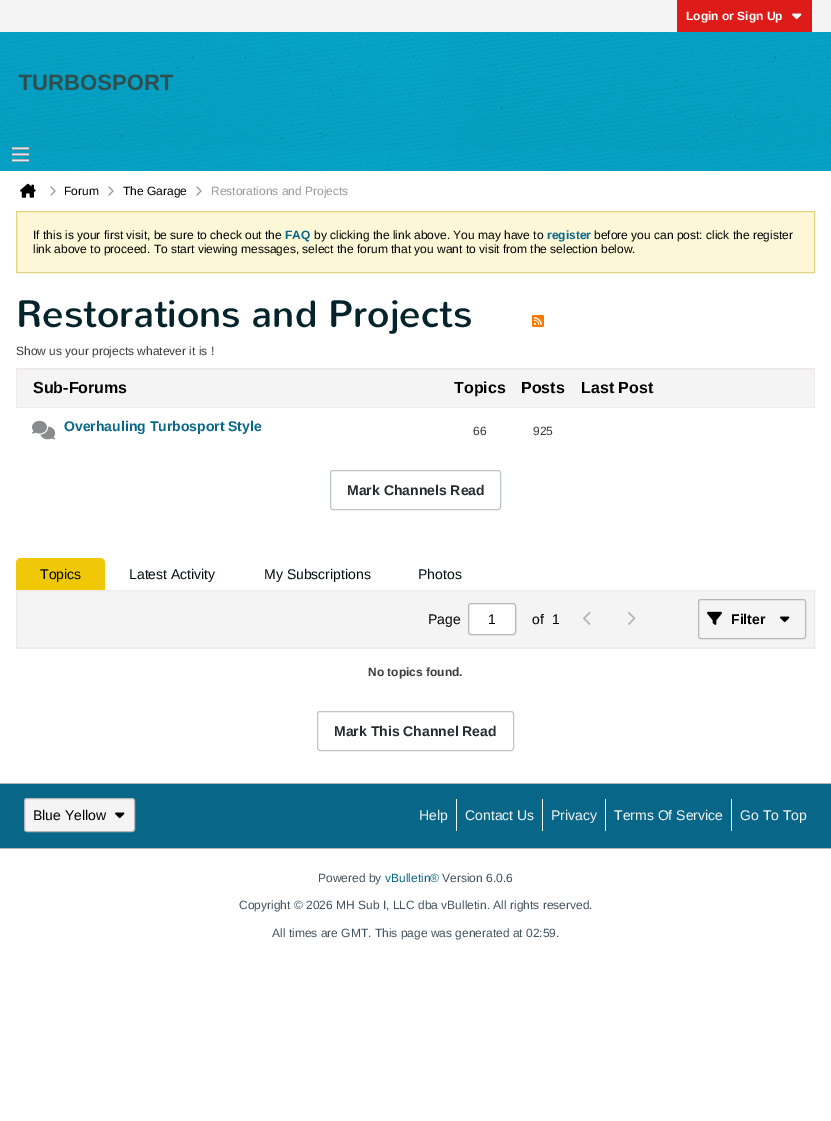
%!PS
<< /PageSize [831 1121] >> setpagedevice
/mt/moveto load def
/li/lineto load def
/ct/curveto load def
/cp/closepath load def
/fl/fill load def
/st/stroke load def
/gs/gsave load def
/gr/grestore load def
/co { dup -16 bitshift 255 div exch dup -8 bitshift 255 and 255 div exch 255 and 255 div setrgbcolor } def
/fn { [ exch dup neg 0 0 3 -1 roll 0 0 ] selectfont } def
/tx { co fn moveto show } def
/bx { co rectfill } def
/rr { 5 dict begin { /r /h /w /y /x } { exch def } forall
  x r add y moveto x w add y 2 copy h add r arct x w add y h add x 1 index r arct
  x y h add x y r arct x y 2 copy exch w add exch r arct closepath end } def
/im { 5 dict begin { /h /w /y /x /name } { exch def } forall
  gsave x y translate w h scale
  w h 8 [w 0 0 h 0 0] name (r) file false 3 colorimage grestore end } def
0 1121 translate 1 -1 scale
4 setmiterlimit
0 0 831 1121 16#FFFFFF bx
0 0 831 32 16#F5F4F4 bx
677 0 135 32 16#DD1C1A bx
(media/1.raw) 792 13 10 7 im
(media/2.raw) 0 32 831 139 im
(media/3.raw) 18 74 155 17 im
(media/4.raw) 12 147 17 15 im
(media/5.raw) 20 183 16 15 im
(media/6.raw) 50 186 6 10 im
(media/6.raw) 108 186 6 10 im
(media/6.raw) 196 186 6 10 im
16#FCF7D7 co
16.5 211.5 mt 814.5 211.5 li 814.5 272.5 li 16.5 272.5 li cp gs fl gr
16#E1D47E co
st
(media/7.raw) 532 315 12 12 im
16 368 799 2 16#ECEAEA bx
17 370 797 37 16#F5F4F4 bx
16 407 799 1 16#ECEAEA bx
16 369 1 39 16#ECEAEA bx
814 369 1 39 16#ECEAEA bx
(media/8.raw) 32 420 24 20 im
16#BFC5C9 co
330.5 470.5 170 39 2.5 rr st
16#F0C808 co
21 558 mt 100 558 li 103 558 105 560 105 563 ct 105 590 li 16 590 li 16 563 li 16 560 18 558 21 558 ct cp fl
16#F5F4F4 co
16.5 590.5 mt 814.5 590.5 li 814.5 647.5 li 16.5 647.5 li cp gs fl gr
16#ECEAEA co
st
16#FFFFFF co
468.5 603.5 47 31 2.5 rr gs fl gr
16#B7B7B7 co
st
(media/9.raw) 583 611 8 14 im
(media/10.raw) 628 611 8 14 im
698.5 599.5 107 39 2.5 rr st
(media/11.raw) 707 611 15 14 im
(media/12.raw) 780 616 10 7 im
16 648 799 1 16#ECEAEA bx
16#BFC5C9 co
317.5 711.5 196 39 2.5 rr st
0 784 831 64 16#086788 bx
0 783 831 1 16#B7B7B7 bx
0 848 831 1 16#B7B7B7 bx
16#F5F4F4 co
24.5 798.5 110 33 2.5 rr gs fl gr
16#B7B7B7 co
st
(media/12.raw) 115 812 10 7 im
456 799 1 32 16#F6F6F6 bx
542 799 1 32 16#F6F6F6 bx
605 799 1 32 16#F6F6F6 bx
731 799 1 32 16#F6F6F6 bx
(Login or Sign Up) 686 20 /LiberationSans-Bold 12 16#FFFFFF tx
(Forum) 64 195 /LiberationSans-Regular 12 16#000000 tx
(The Garage) 123 195 /LiberationSans-Regular 12 16#000000 tx
(Restorations and Projects) 211 195 /LiberationSans-Regular 12 16#999999 tx
(If this is your first visit, be sure to check out the) 33 239 /LiberationSans-Regular 12 16#000000 tx
(FAQ) 285 239 /LiberationSans-Bold 12 16#086788 tx
(by clicking the link above. You may have to) 314 239 /LiberationSans-Regular 12 16#000000 tx
(register) 547 239 /LiberationSans-Bold 12 16#086788 tx
(before you can post: click the register) 594 239 /LiberationSans-Regular 12 16#000000 tx
(link above to proceed. To start viewing messages, select the forum that you want to visit from the selection below.) 33 253 /LiberationSans-Regular 12 16#000000 tx
(Restorations and Projects) 16 327 /Nunito-Regular 38 16#04232A tx
(Show us your projects whatever it is !) 16 355 /LiberationSans-Regular 12 16#3C3C3C tx
(Sub-Forums) 33 393 /LiberationSans-Bold 16 16#000000 tx
(Topics) 454 393 /LiberationSans-Bold 16 16#000000 tx
(Posts) 521 393 /LiberationSans-Bold 16 16#000000 tx
(Last Post) 581 393 /LiberationSans-Bold 16 16#000000 tx
(Overhauling Turbosport Style) 64 431 /LiberationSans-Bold 14 16#086788 tx
(66) 473 435 /LiberationSans-Regular 12 16#3C3C3C tx
(925) 533 435 /LiberationSans-Regular 12 16#3C3C3C tx
(Mark Channels Read) 347 495 /LiberationSans-Bold 14 16#252C2F tx
(Topics) 40 579 /LiberationSans-Regular 14 16#010D11 tx
(Latest Activity) 129 579 /LiberationSans-Regular 14 16#010D11 tx
(My Subscriptions) 264 579 /LiberationSans-Regular 14 16#010D11 tx
(Photos) 418 579 /LiberationSans-Regular 14 16#010D11 tx
(Page) 428 624 /LiberationSans-Regular 14 16#000000 tx
(1) 488 624 /LiberationSans-Regular 14 16#000000 tx
(of) 532 624 /LiberationSans-Regular 14 16#000000 tx
(1) 552 624 /LiberationSans-Regular 14 16#000000 tx
(Filter) 731 624 /LiberationSans-Bold 14 16#000000 tx
(No topics found.) 368 676 /LiberationSans-Bold 12 16#3C3C3C tx
(Mark This Channel Read) 334 736 /LiberationSans-Bold 14 16#252C2F tx
(Blue Yellow) 33 820 /LiberationSans-Regular 14 16#000000 tx
(Help) 419 820 /LiberationSans-Regular 14 16#F6F6F6 tx
(Contact Us) 465 820 /LiberationSans-Regular 14 16#F6F6F6 tx
(Privacy) 551 820 /LiberationSans-Regular 14 16#F6F6F6 tx
(Terms Of Service) 614 820 /LiberationSans-Regular 14 16#F6F6F6 tx
(Go To Top) 740 820 /LiberationSans-Regular 14 16#F6F6F6 tx
(Powered by) 318 882 /LiberationSans-Regular 12 16#43535E tx
(vBulletin®) 385 882 /LiberationSans-Regular 12 16#086788 tx
(Version 6.0.6) 442 882 /LiberationSans-Regular 12 16#43535E tx
(Copyright © 2026 MH Sub I, LLC dba vBulletin. All rights reserved.) 239 909 /LiberationSans-Regular 12 16#43535E tx
(All times are GMT. This page was generated at 02:59.) 272 937 /LiberationSans-Regular 12 16#43535E tx
showpage
